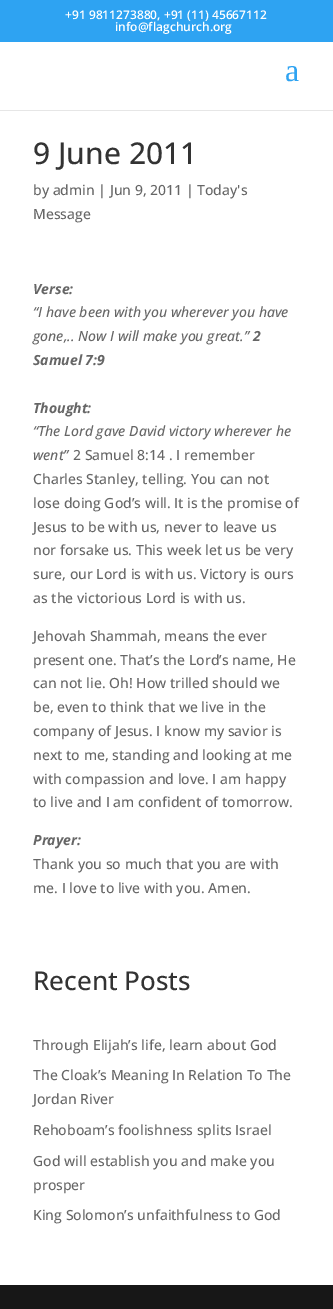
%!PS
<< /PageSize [333 1309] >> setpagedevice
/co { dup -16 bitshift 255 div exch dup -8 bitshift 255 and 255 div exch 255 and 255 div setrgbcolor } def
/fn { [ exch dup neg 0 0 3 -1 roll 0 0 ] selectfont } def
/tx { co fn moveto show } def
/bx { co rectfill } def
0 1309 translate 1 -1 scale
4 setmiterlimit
0 0 333 1309 16#FFFFFF bx
0 0 333 42 16#2EA3F2 bx
0 110 333 1 16#E6E6E6 bx
0 1285 333 24 16#171717 bx
(+91 9811273880, +91 \(11\) 45667112) 65 19 /OpenSans-SemiBold 12 16#FFFFFF tx
(info@flagchurch.org) 115 31 /OpenSans-SemiBold 12 16#FFFFFF tx
(a) 285 81 /LiberationSerif-Regular 32 16#2EA3F2 tx
(9 June 2011) 33 164 /OpenSans-Medium 30 16#333333 tx
(by admin | Jun 9, 2011 | Today's) 33 195 /OpenSans-Medium 14 16#666666 tx
(Message) 33 219 /OpenSans-Medium 14 16#666666 tx
(Verse:) 33 294 /OpenSans-BoldItalic 14 16#666666 tx
(“I have been with you wherever you have) 33 317 /OpenSans-MediumItalic 14 16#666666 tx
(gone,.. Now I will make you great.”) 33 341 /OpenSans-MediumItalic 14 16#666666 tx
(2) 253 341 /OpenSans-BoldItalic 14 16#666666 tx
(Samuel 7:9) 33 365 /OpenSans-BoldItalic 14 16#666666 tx
(Thought:) 33 413 /OpenSans-BoldItalic 14 16#666666 tx
(“The Lord gave David victory wherever he) 33 436 /OpenSans-MediumItalic 14 16#666666 tx
(went”) 33 460 /OpenSans-MediumItalic 14 16#666666 tx
(2 Samuel 8:14 . I remember) 73 460 /OpenSans-Medium 14 16#666666 tx
(Charles Stanley, telling. You can not) 33 484 /OpenSans-Medium 14 16#666666 tx
(lose doing God’s will. It is the promise of) 33 508 /OpenSans-Medium 14 16#666666 tx
(Jesus to be with us, never to leave us) 33 532 /OpenSans-Medium 14 16#666666 tx
(nor forsake us. This week let us be very) 33 555 /OpenSans-Medium 14 16#666666 tx
(sure, our Lord is with us. Victory is ours) 33 579 /OpenSans-Medium 14 16#666666 tx
(as the victorious Lord is with us.) 33 603 /OpenSans-Medium 14 16#666666 tx
(Jehovah Shammah, means the ever) 33 641 /OpenSans-Medium 14 16#666666 tx
(present one. That’s the Lord’s name, He) 33 665 /OpenSans-Medium 14 16#666666 tx
(can not lie. Oh! How trilled should we) 33 688 /OpenSans-Medium 14 16#666666 tx
(be, even to think that we live in the) 33 712 /OpenSans-Medium 14 16#666666 tx
(company of Jesus. I know my savior is) 33 736 /OpenSans-Medium 14 16#666666 tx
(next to me, standing and looking at me) 33 760 /OpenSans-Medium 14 16#666666 tx
(with compassion and love. I am happy) 33 784 /OpenSans-Medium 14 16#666666 tx
(to live and I am confident of tomorrow.) 33 807 /OpenSans-Medium 14 16#666666 tx
(Prayer:) 33 845 /OpenSans-BoldItalic 14 16#666666 tx
(Thank you so much that you are with) 33 869 /OpenSans-Medium 14 16#666666 tx
(me. I love to live with you. Amen.) 33 893 /OpenSans-Medium 14 16#666666 tx
(Recent Posts) 33 990 /OpenSans-Medium 26 16#333333 tx
(Through Elijah’s life, learn about God) 33 1050 /OpenSans-Medium 14 16#666666 tx
(The Cloak’s Meaning In Relation To The) 33 1080 /OpenSans-Medium 14 16#666666 tx
(Jordan River) 33 1104 /OpenSans-Medium 14 16#666666 tx
(Rehoboam’s foolishness splits Israel) 33 1135 /OpenSans-Medium 14 16#666666 tx
(God will establish you and make you) 33 1166 /OpenSans-Medium 14 16#666666 tx
(prosper) 33 1190 /OpenSans-Medium 14 16#666666 tx
(King Solomon’s unfaithfulness to God) 33 1220 /OpenSans-Medium 14 16#666666 tx
showpage
